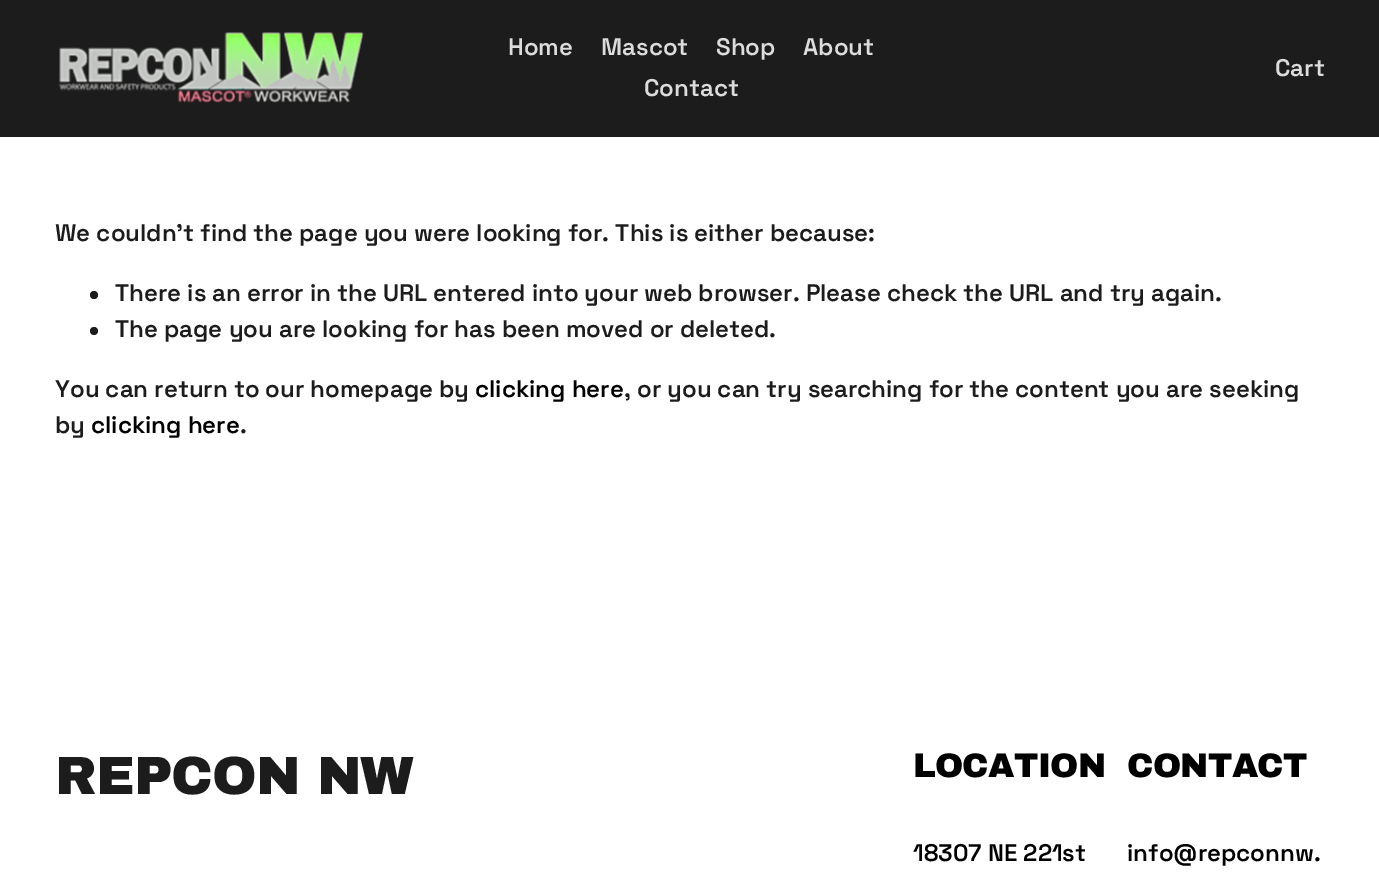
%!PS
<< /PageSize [1379 889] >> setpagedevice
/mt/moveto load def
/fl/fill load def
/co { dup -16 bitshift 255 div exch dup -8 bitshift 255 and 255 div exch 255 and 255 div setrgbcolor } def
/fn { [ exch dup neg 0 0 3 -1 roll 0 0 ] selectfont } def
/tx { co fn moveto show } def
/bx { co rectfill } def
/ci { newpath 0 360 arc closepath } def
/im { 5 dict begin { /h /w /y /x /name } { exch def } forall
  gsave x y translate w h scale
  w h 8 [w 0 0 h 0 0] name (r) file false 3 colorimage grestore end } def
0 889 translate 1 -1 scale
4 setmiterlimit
0 0 1379 889 16#FFFFFF bx
0 0 1379 137 16#1C1C1C bx
(media/1.raw) 59 32 305 71 im
94 295 4 ci fl
94 331 4 ci fl
(Home) 508 55 /SpaceGrotesk-SemiBold 24 16#DCDCDC tx
(Mascot) 601 55 /SpaceGrotesk-SemiBold 24 16#DCDCDC tx
(Shop) 716 55 /SpaceGrotesk-SemiBold 24 16#DCDCDC tx
(About) 803 55 /SpaceGrotesk-SemiBold 24 16#DCDCDC tx
(Contact) 644 96 /SpaceGrotesk-SemiBold 24 16#DCDCDC tx
(Cart) 1275 76 /SpaceGrotesk-SemiBold 24 16#DCDCDC tx
(We couldn't find the page you were looking for. This is either because:) 55 241 /SpaceGrotesk-SemiBold 24 16#1C1C1C tx
(There is an error in the URL entered into your web browser. Please check the URL and try again.) 115 301 /SpaceGrotesk-SemiBold 24 16#1C1C1C tx
(The page you are looking for has been moved or deleted.) 115 337 /SpaceGrotesk-SemiBold 24 16#1C1C1C tx
(You can return to our homepage by) 55 397 /SpaceGrotesk-SemiBold 24 16#1C1C1C tx
(clicking here) 475 397 /SpaceGrotesk-SemiBold 24 16#000000 tx
(, or you can try searching for the content you are seeking) 624 397 /SpaceGrotesk-SemiBold 24 16#1C1C1C tx
(by) 55 433 /SpaceGrotesk-SemiBold 24 16#1C1C1C tx
(clicking here) 91 433 /SpaceGrotesk-SemiBold 24 16#000000 tx
(.) 240 433 /SpaceGrotesk-SemiBold 24 16#1C1C1C tx
/ArchivoBlack-Black 53.75 fn
55 794 mt -1 0 (REPCON NW) ashow
/ArchivoBlack-Black 34 fn
16#000000 co
913 777 mt -.75 0 (LOCATION) ashow
(18307 NE 221st) 913 861 /SpaceGrotesk-SemiBold 24 16#000000 tx
/ArchivoBlack-Black 34 fn
1127 777 mt -.75 0 (CONTACT) ashow
(info@repconnw.) 1127 861 /SpaceGrotesk-SemiBold 24 16#000000 tx
showpage
